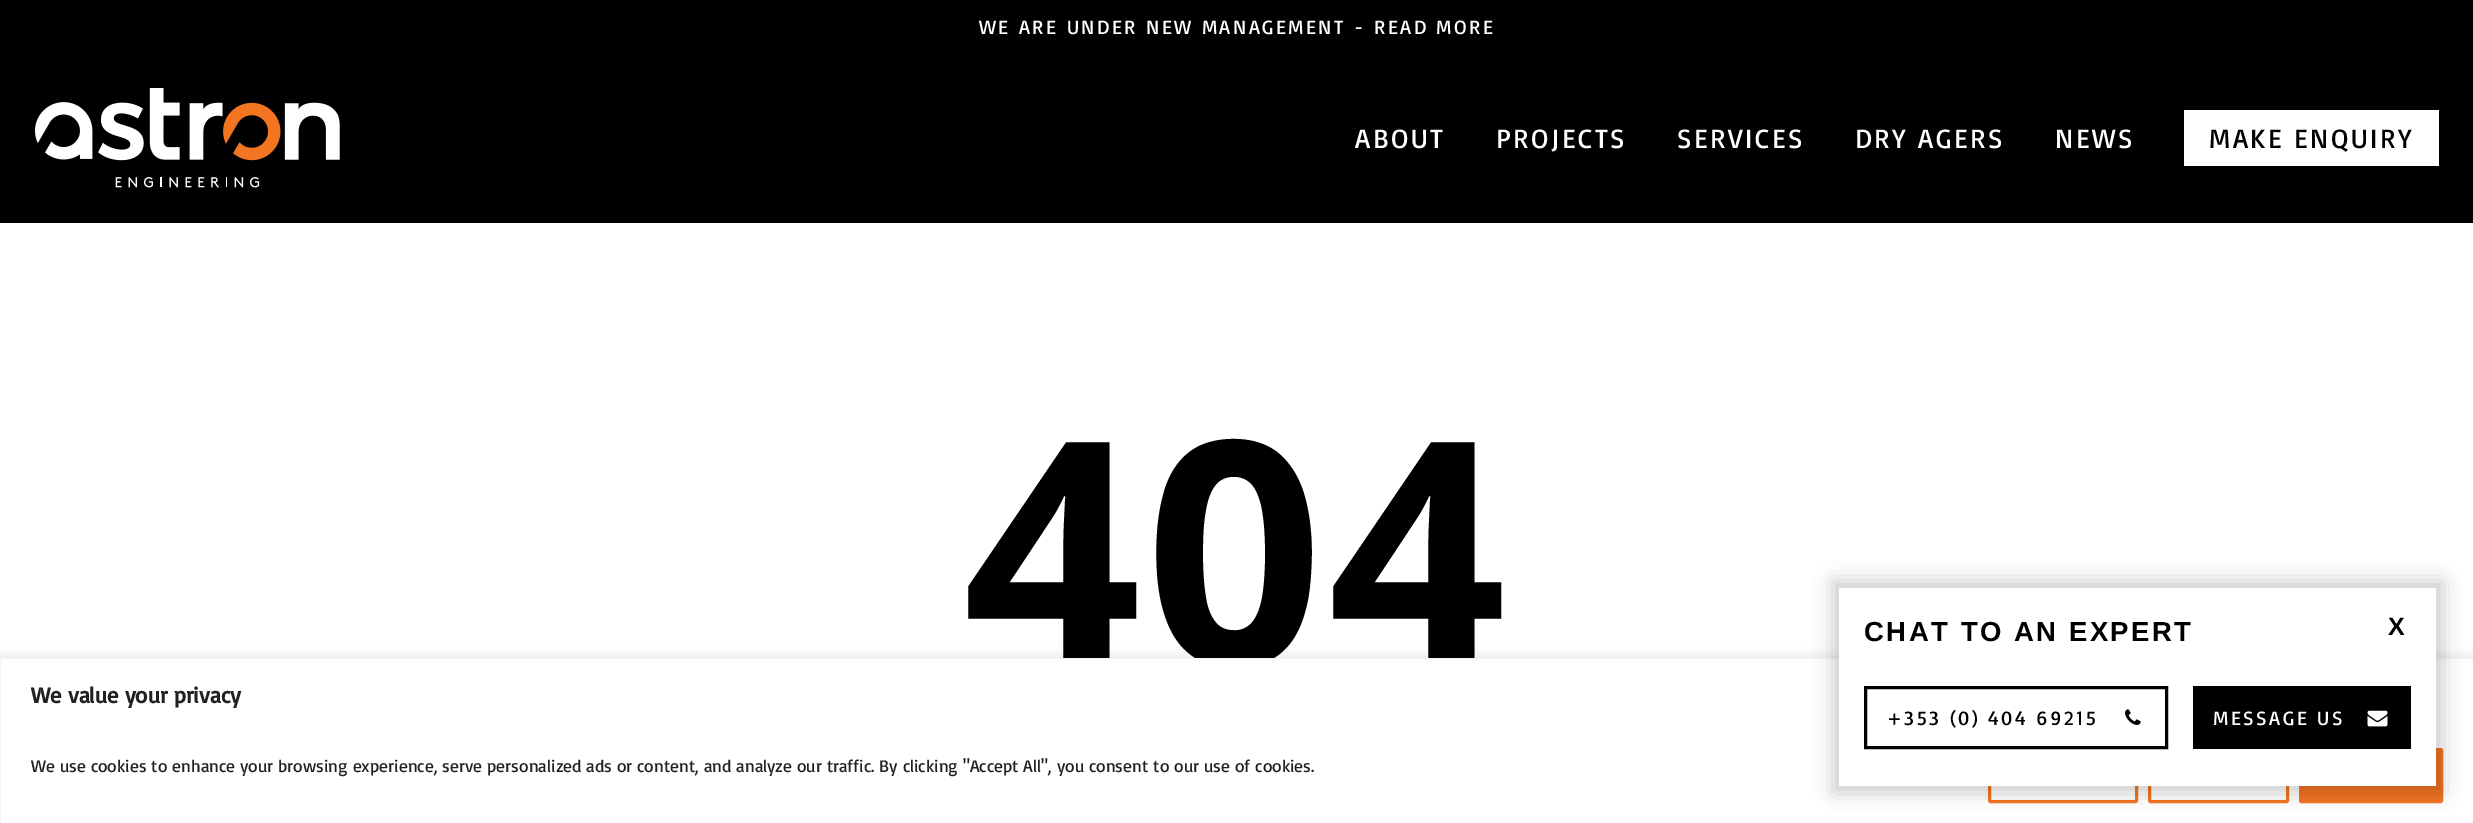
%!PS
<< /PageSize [2473 823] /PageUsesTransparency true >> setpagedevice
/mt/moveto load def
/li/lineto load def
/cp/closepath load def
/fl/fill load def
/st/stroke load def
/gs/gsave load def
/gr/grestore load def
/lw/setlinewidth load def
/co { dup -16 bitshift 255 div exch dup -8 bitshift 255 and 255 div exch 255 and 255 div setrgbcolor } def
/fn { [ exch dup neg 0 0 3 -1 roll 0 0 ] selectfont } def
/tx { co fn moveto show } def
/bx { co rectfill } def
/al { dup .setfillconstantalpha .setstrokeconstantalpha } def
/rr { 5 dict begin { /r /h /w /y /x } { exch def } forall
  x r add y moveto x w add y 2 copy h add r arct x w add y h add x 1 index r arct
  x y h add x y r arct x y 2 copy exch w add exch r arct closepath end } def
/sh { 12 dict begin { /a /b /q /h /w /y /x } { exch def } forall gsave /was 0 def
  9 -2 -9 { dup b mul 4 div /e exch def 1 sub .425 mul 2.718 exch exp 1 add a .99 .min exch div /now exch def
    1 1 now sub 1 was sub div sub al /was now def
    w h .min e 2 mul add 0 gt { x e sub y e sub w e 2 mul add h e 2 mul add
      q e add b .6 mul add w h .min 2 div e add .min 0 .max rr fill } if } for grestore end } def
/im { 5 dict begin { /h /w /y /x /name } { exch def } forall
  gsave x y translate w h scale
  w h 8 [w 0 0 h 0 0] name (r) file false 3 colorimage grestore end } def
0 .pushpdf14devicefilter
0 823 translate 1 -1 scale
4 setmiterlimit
0 0 2473 823 16#FFFFFF bx
0 0 2473 223 16#000000 bx
(media/1.raw) 35 88 305 100 im
2184 110 255 56 16#FFFFFF bx
16#ACABAB co
0 656 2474 167 0 6 .3 sh
/Basic-Regular 20 fn
16#FFFFFF co
979 34 mt 2.5 0 (WE ARE UNDER NEW MANAGEMENT - READ MORE) ashow
/Basic-Regular 27.5 fn
1355 148 mt 2.5 0 (ABOUT) ashow
1496 148 mt 2.5 0 (PROJECTS) ashow
1677 148 mt 2.5 0 (SERVICES) ashow
1855 148 mt 2.5 0 (DRY AGERS) ashow
2055 148 mt 2.5 0 (NEWS) ashow
16#000000 co
2209 148 mt 2.5 0 (MAKE ENQUIRY) ashow
/OpenSans-Bold 312 fn
963 665 mt 4 0 (404) ashow
16#FFFFFF co
.5 658.5 mt 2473.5 658.5 li 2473.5 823.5 li .5 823.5 li cp gs fl gr
16#F4F4F4 co
st
(We value your privacy) 31 703 /Basic-Bold 22.5 16#212121 tx
(We use cookies to enhance your browsing experience, serve personalized ads or content, and analyze our traffic. By clicking "Accept All", you consent to our use of cookies.) 31 772 /Basic-Regular 17.5 16#212121 tx
16#F37521 co
3 lw
1989.5 749.5 147 52 1 rr st
2149.5 749.5 138 52 1 rr st
2300.5 749.5 141 52 1 rr gs fl gr
st
16#000000 co
1833 581 610 212 0 9.5 .2 sh
1839 588 597 198 16#FFFFFF bx
/LiberationSans-Bold 27.5 fn
16#000000 co
1864 641 mt 2.5 0 (CHAT TO AN EXPERT) ashow
1865.5 687.5 301 60 rectstroke
/Basic-Regular 20 fn
1887 725 mt 2.5 0 (+353 \(0\) 404 69215) ashow
(media/2.raw) 2125 709 16 16 im
2193 686 218 63 16#000000 bx
16#FFFFFF co
2213 725 mt 2.5 0 (MESSAGE US) ashow
(media/3.raw) 2367 710 21 17 im
(X) 2388 635 /LiberationSans-Bold 25 16#000000 tx
.poppdf14devicefilter showpage
